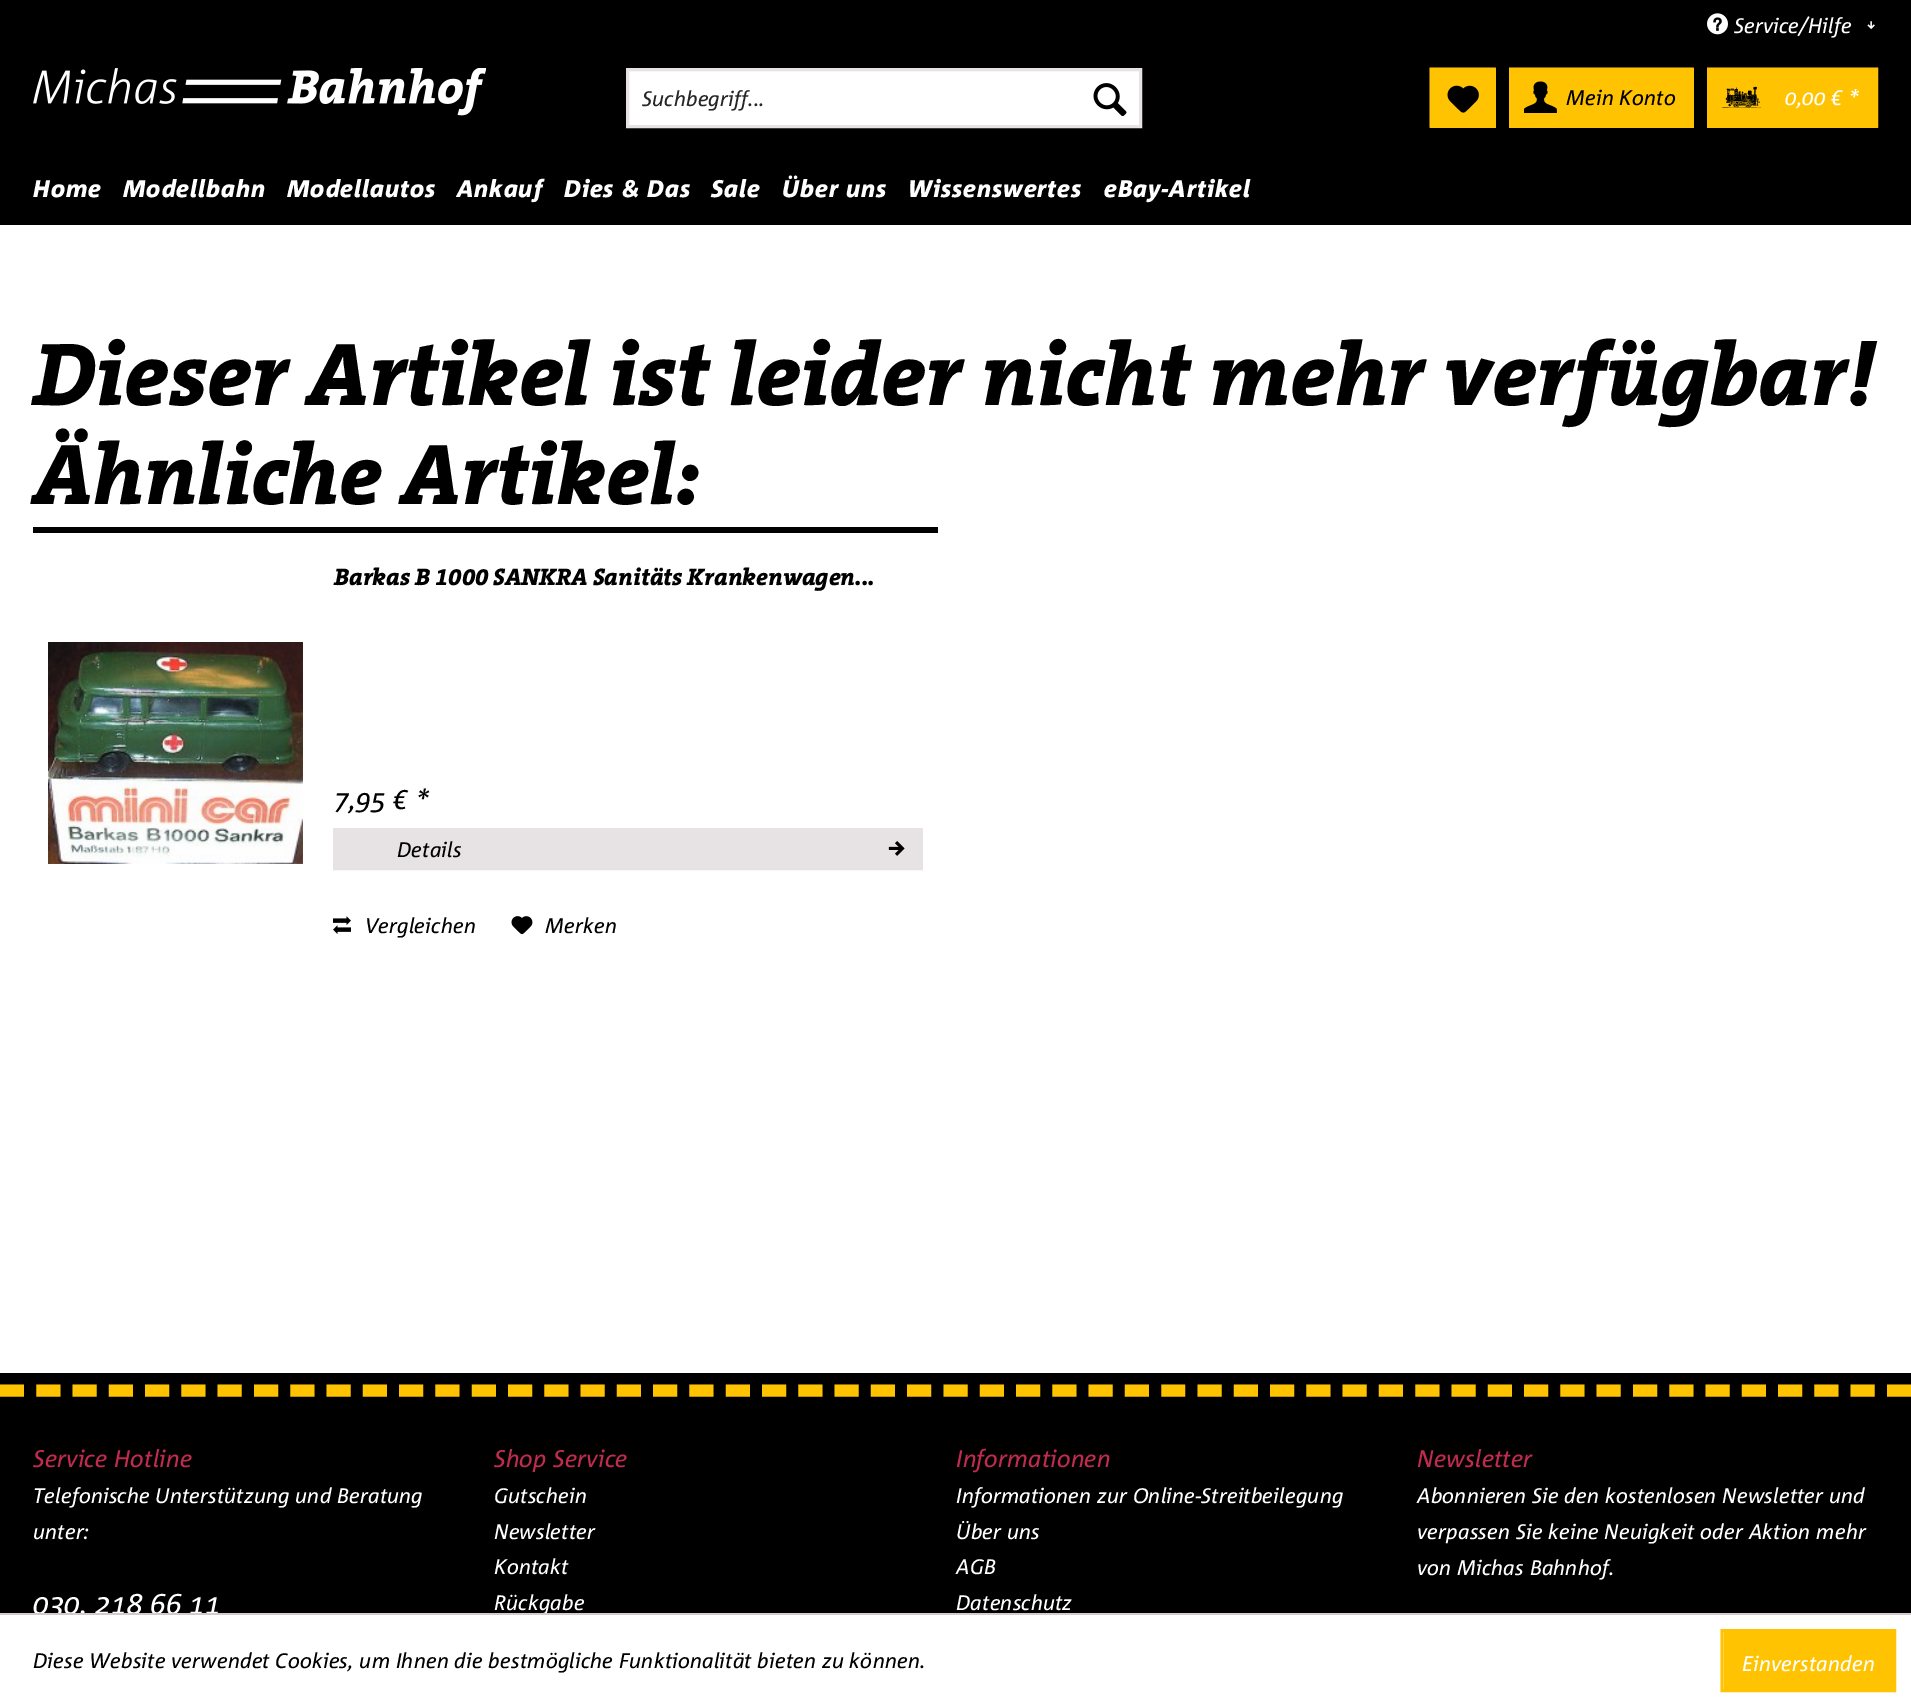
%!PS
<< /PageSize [1911 1706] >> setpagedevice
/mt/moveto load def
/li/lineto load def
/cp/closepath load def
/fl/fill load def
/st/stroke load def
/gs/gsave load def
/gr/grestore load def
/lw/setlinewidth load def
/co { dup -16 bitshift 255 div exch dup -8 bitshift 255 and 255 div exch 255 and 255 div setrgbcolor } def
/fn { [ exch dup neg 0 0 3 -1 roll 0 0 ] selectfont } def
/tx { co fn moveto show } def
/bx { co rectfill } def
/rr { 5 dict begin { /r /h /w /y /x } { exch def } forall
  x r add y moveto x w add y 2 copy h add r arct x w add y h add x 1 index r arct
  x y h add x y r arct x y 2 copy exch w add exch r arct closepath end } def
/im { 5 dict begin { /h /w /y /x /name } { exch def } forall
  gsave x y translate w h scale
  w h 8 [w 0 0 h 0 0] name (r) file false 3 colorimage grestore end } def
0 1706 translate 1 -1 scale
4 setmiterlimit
0 0 1911 1706 16#FFFFFF bx
0 0 1911 225 16#000000 bx
(media/1.raw) 1707 13 21 22 im
(media/2.raw) 1867 21 8 9 im
(media/3.raw) 33 68 453 48 im
16#FFFFFF co
627.5 69.5 mt 1140.5 69.5 li 1140.5 126.5 li 627.5 126.5 li cp gs fl gr
16#E7E3E4 co
3 lw
st
(media/4.raw) 1093 83 34 33 im
16#FFC302 co
1430 68 66 60 1 rr fl
1431 69 mt 1494 69 li 1494 126 li 1431 126 li cp st
(media/5.raw) 1447 85 32 28 im
1509 68 185 60 1 rr fl
1510.5 69 mt 1692 69 li 1692 126 li 1510.5 126 li cp st
(media/6.raw) 1524 81 33 32 im
1707 68 171 60 1 rr fl
1708.5 69 mt 1876.5 69 li 1876.5 126 li 1708.5 126 li cp st
(media/7.raw) 1722 86 39 22 im
33 527 905 6 16#000000 bx
(media/8.raw) 48 642 255 222 im
16#E7E3E4 co
333 828 590 42 1 rr fl
334.5 829.5 mt 921 829.5 li 921 868.5 li 334.5 868.5 li cp st
(media/9.raw) 888 841 17 15 im
(media/10.raw) 333 916 18 18 im
(media/11.raw) 511 916 22 19 im
0 1373 1911 240 16#000000 bx
16#FFC302 co
12 lw
[24 12.29] 0 setdash
0 1390.5 mt 1911 1390.5 li st
1724 1632 169 57 16#FFC302 bx
3 lw
[] 0 setdash
1722 1630.5 mt 1894.5 1630.5 li 1894.5 1690.5 li 1722 1690.5 li cp st
(Service/Hilfe) 1734 33 /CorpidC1-Italic 21 16#FFFFFF tx
(Suchbegriff...) 642 106 /CorpidC1-Italic 21 16#262626 tx
(Mein Konto) 1566 105 /CorpidC1-Italic 21 16#000000 tx
(0,00 € *) 1785 105 /CorpidC1-Italic 21 16#FFFFFF tx
/CorpidC1-BlackItalic 24 fn
33 197 mt .75 0 (Home) ashow
123 197 mt .75 0 (Modellbahn) ashow
287 197 mt .75 0 (Modellautos) ashow
457 197 mt .75 0 (Ankauf) ashow
564 197 mt .75 0 (Dies & Das) ashow
711 197 mt .75 0 (Sale) ashow
782 197 mt .75 0 (Über uns) ashow
908 197 mt .75 0 (Wissenswertes) ashow
1104 197 mt .75 0 (eBay-Artikel) ashow
(Dieser Artikel ist leider nicht mehr verfügbar!) 33 405 /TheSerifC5-ExtraBoldItalic 90 16#000000 tx
(Ähnliche Artikel:) 33 504 /TheSerifC5-ExtraBoldItalic 87 16#000000 tx
(Barkas B 1000 SANKRA Sanitäts Krankenwagen...) 334 585 /TheSerifC5-ExtraBoldItalic 24 16#000000 tx
(7,95 € *) 334 809 /CorpidC1-Italic 27 16#000000 tx
(Details) 397 857 /CorpidC1-Italic 21 16#000000 tx
(Vergleichen) 365 933 /CorpidC1-Italic 21 16#000000 tx
(Merken) 545 933 /CorpidC1-Italic 21 16#000000 tx
(Service Hotline) 33 1467 /CorpidC1-Italic 24 16#BF2C4D tx
(Telefonische Unterstützung und Beratung) 33 1503 /CorpidC1-Italic 21 16#FFFFFF tx
(unter:) 33 1539 /CorpidC1-Italic 21 16#FFFFFF tx
(030. 218 66 11) 33 1614 /CorpidC1-Italic 28.5 16#FFFFFF tx
(Shop Service) 494 1467 /CorpidC1-Italic 24 16#BF2C4D tx
(Gutschein) 494 1503 /CorpidC1-Italic 21 16#FFFFFF tx
(Newsletter) 494 1539 /CorpidC1-Italic 21 16#FFFFFF tx
(Kontakt) 494 1574 /CorpidC1-Italic 21 16#FFFFFF tx
(Rückgabe) 494 1610 /CorpidC1-Italic 21 16#FFFFFF tx
(Informationen) 956 1467 /CorpidC1-Italic 24 16#BF2C4D tx
(Informationen zur Online-Streitbeilegung) 956 1503 /CorpidC1-Italic 21 16#FFFFFF tx
(Über uns) 956 1539 /CorpidC1-Italic 21 16#FFFFFF tx
(AGB) 956 1574 /CorpidC1-Italic 21 16#FFFFFF tx
(Datenschutz) 956 1610 /CorpidC1-Italic 21 16#FFFFFF tx
(Newsletter) 1417 1467 /CorpidC1-Italic 24 16#BF2C4D tx
(Abonnieren Sie den kostenlosen Newsletter und) 1417 1503 /CorpidC1-Italic 21 16#FFFFFF tx
(verpassen Sie keine Neuigkeit oder Aktion mehr) 1417 1539 /CorpidC1-Italic 21 16#FFFFFF tx
(von Michas Bahnhof.) 1417 1575 /CorpidC1-Italic 21 16#FFFFFF tx
0 1613 1911 2 16#D2CACC bx
(Diese Website verwendet Cookies, um Ihnen die bestmögliche Funktionalität bieten zu können.) 33 1668 /CorpidC1-Italic 21 16#000000 tx
(Einverstanden) 1742 1671 /CorpidC1-Italic 21 16#FFFFFF tx
showpage
